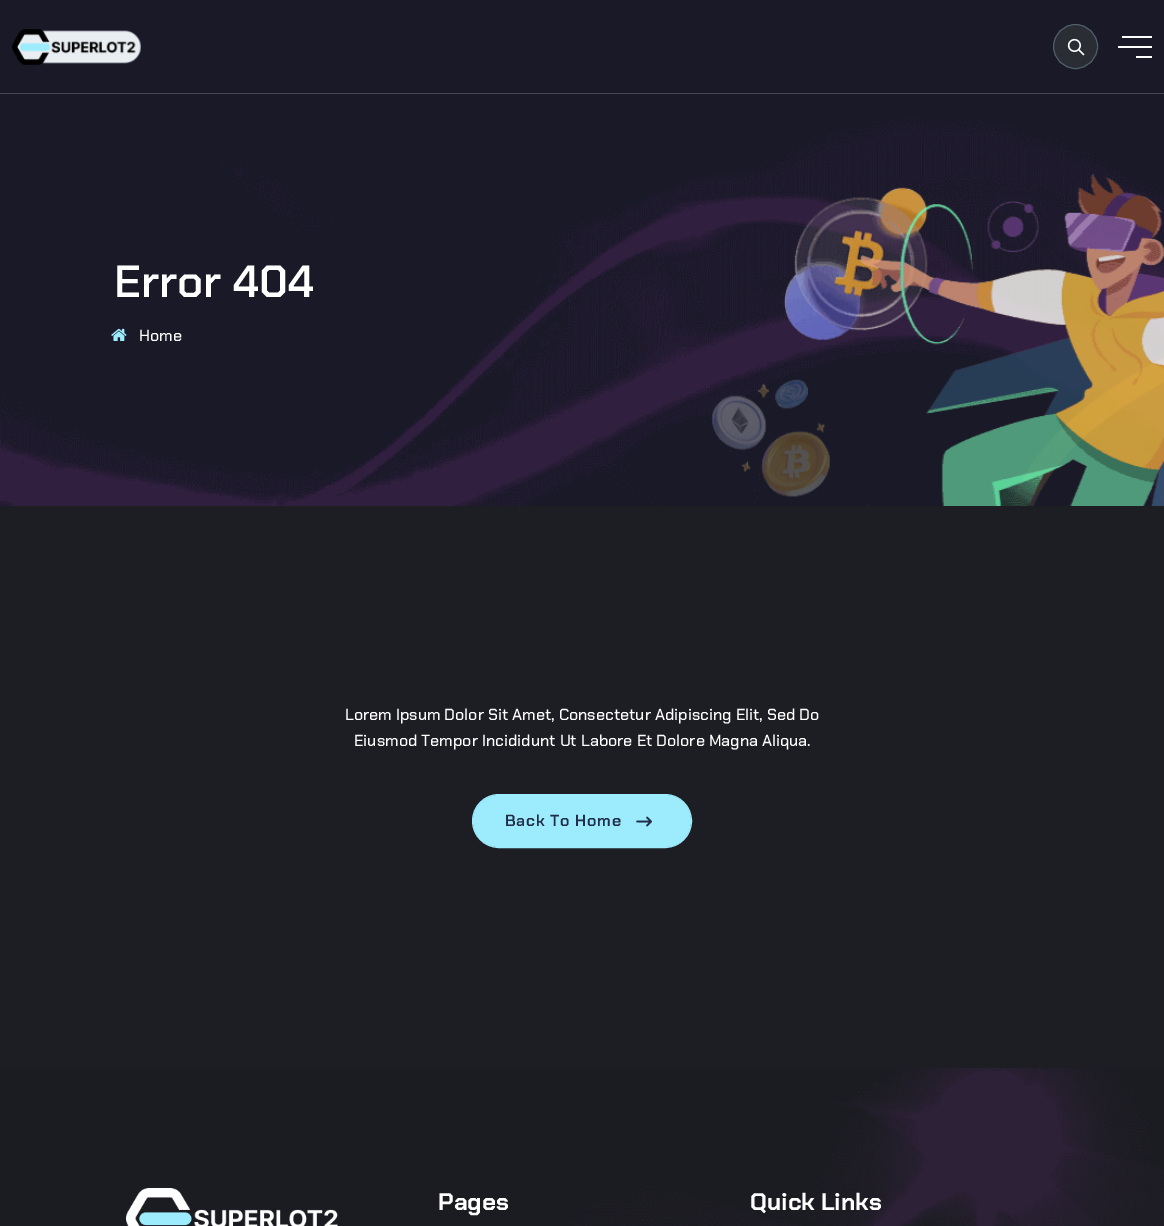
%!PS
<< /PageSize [1164 1226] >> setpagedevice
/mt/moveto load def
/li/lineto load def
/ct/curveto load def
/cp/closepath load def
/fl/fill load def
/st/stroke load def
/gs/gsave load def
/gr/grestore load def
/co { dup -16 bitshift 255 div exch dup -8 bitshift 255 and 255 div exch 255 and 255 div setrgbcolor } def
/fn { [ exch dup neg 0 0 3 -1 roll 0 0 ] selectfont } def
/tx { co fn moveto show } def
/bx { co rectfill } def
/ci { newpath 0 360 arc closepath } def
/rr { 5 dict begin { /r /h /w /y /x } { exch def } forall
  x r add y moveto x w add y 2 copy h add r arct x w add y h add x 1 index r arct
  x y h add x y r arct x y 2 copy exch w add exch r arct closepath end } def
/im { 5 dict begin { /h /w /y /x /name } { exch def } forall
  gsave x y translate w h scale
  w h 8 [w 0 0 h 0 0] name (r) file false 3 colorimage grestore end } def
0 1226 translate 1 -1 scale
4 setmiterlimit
0 0 1164 1226 16#1D1E24 bx
(media/3.raw) 0 0 1164 506 im
0 93 1164 1 16#474753 bx
(media/1.raw) 12 29 129 36 im
16#2A2D33 co
1075.5 46.5 22 ci gs fl gr
16#505D6A co
st
(media/2.raw) 1067 38 18 18 im
1122 36 30 2 16#FFFFFF bx
1118 46 34 2 16#FFFFFF bx
1136 56 16 2 16#FFFFFF bx
(media/4.raw) 111 328 16 13 im
16#9CECFE co
472.5 794.5 219 53 26.5 rr st
580 795 mt 665 795 li 679.5 795 691 806.5 691 821 ct 691 835.5 679.5 847 665 847 ct 580 847 li cp fl
499 795 mt 584 795 li 584 847 li 499 847 li 484.5 847 473 835.5 473 821 ct 473 806.5 484.5 795 499 795 ct cp fl
(media/5.raw) 636 816 16 11 im
(media/6.raw) 0 1068 1164 158 im
(media/7.raw) 126 1188 212 38 im
(Error 404) 114 297 /ChakraPetch-SemiBold 45 16#FFFFFF tx
(Home) 139 341 /ChakraPetch-Medium 16 16#FFFFFF tx
(Lorem Ipsum Dolor Sit Amet, Consectetur Adipiscing Elit, Sed Do) 345 720 /ChakraPetch-Medium 16 16#FFFFFF tx
(Eiusmod Tempor Incididunt Ut Labore Et Dolore Magna Aliqua.) 354 746 /ChakraPetch-Medium 16 16#FFFFFF tx
/ChakraPetch-SemiBold 16 fn
16#222E48 co
505 826 mt .75 0 (Back To Home) ashow
(Pages) 438 1210 /ChakraPetch-Bold 24 16#FFFFFF tx
(Quick Links) 750 1210 /ChakraPetch-Bold 24 16#FFFFFF tx
showpage
